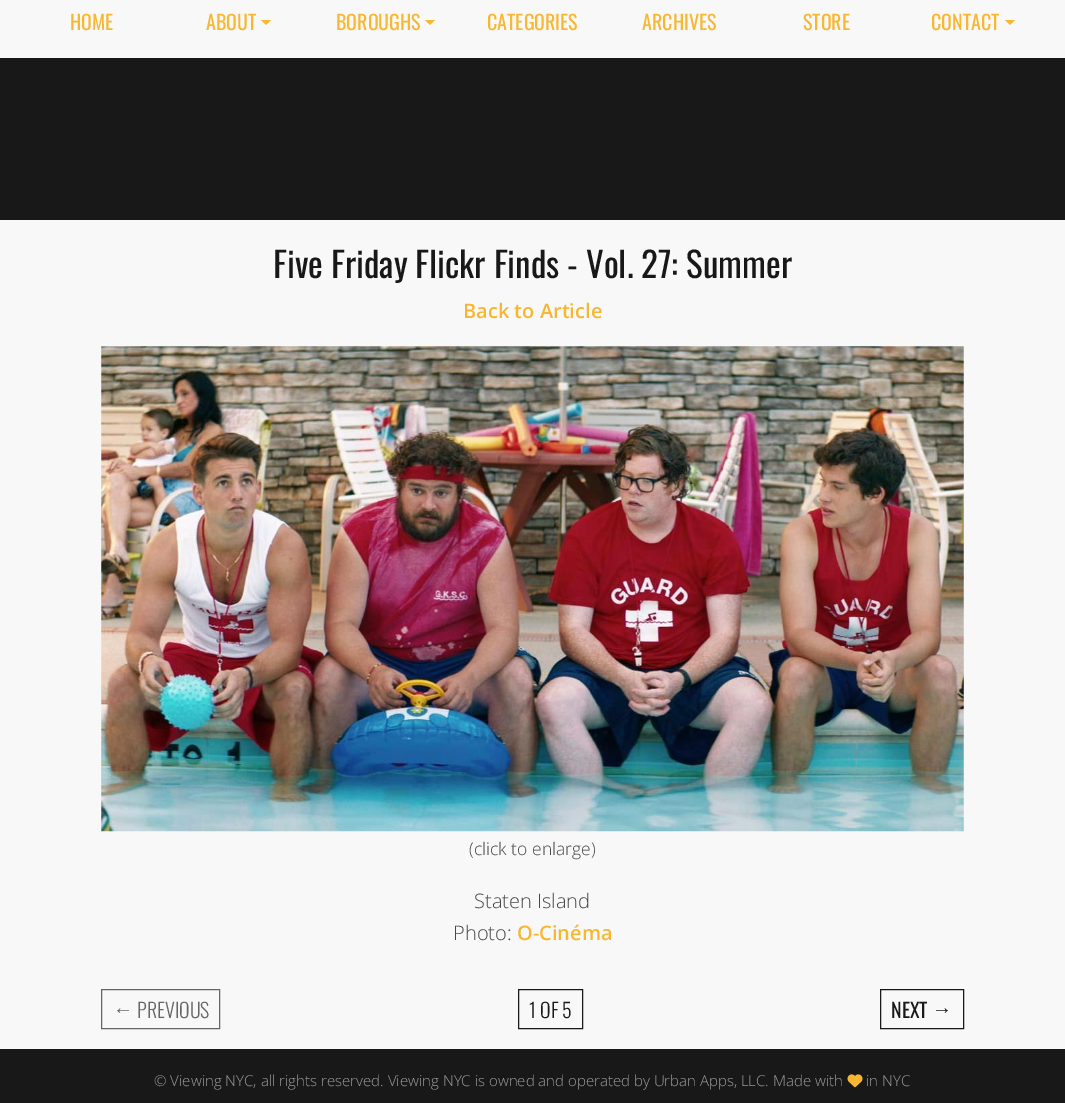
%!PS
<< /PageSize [1065 1103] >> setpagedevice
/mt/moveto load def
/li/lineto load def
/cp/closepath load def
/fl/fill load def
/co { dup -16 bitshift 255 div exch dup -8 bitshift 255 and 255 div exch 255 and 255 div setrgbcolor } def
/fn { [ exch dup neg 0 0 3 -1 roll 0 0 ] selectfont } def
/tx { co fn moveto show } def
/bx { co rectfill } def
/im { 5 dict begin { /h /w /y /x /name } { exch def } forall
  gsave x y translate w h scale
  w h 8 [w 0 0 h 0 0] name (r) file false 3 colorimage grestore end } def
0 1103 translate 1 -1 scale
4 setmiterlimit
0 0 1065 1103 16#F8F8F8 bx
16#F7B731 co
261 20 mt 271 20 li 266 25 li cp fl
425 20 mt 435 20 li 430 25 li cp fl
1005 20 mt 1015 20 li 1010 25 li cp fl
0 58 1065 162 16#181818 bx
(media/1.raw) 101 346 863 486 im
16#666666 co
101.5 989.5 118 39 rectstroke
16#181818 co
518.5 989.5 64 39 rectstroke
880.5 989.5 83 39 rectstroke
0 1049 1065 54 16#181818 bx
(media/2.raw) 847 1074 16 14 im
(HOME) 70 30 /Oswald-Regular 20 16#F7B731 tx
(ABOUT) 206 30 /Oswald-Regular 20 16#F7B731 tx
(BOROUGHS) 336 30 /Oswald-Regular 20 16#F7B731 tx
(CATEGORIES) 487 30 /Oswald-Regular 20 16#F7B731 tx
(ARCHIVES) 642 30 /Oswald-Regular 20 16#F7B731 tx
(STORE) 803 30 /Oswald-Regular 20 16#F7B731 tx
(CONTACT) 931 30 /Oswald-Regular 20 16#F7B731 tx
(Five Friday Flickr Finds - Vol. 27: Summer) 273 278 /Oswald-Regular 35 16#181818 tx
(Back to Article) 463 318 /OpenSans-SemiBold 20 16#F7B731 tx
(\(click to enlarge\)) 469 855 /OpenSans-Light 17.5 16#484848 tx
(Staten Island) 474 908 /OpenSans-Light 20 16#484848 tx
(Photo:) 453 940 /OpenSans-Light 20 16#484848 tx
(O-Cinéma) 517 940 /OpenSans-SemiBold 20 16#F7B731 tx
(←) 113 1014 /LiberationSans-Regular 20 16#666666 tx
(PREVIOUS) 137 1018 /Oswald-Light 20 16#666666 tx
(1 OF 5) 529 1018 /Oswald-Light 20 16#181818 tx
(NEXT) 891 1018 /Oswald-Regular 20 16#181818 tx
(→) 932 1014 /LiberationSans-Regular 20 16#181818 tx
(© Viewing NYC, all rights reserved. Viewing NYC is owned and operated by Urban Apps, LLC. Made with) 154 1086 /OpenSans-Light 15 16#9C9C9C tx
(in NYC) 866 1086 /OpenSans-Light 15 16#9C9C9C tx
showpage
